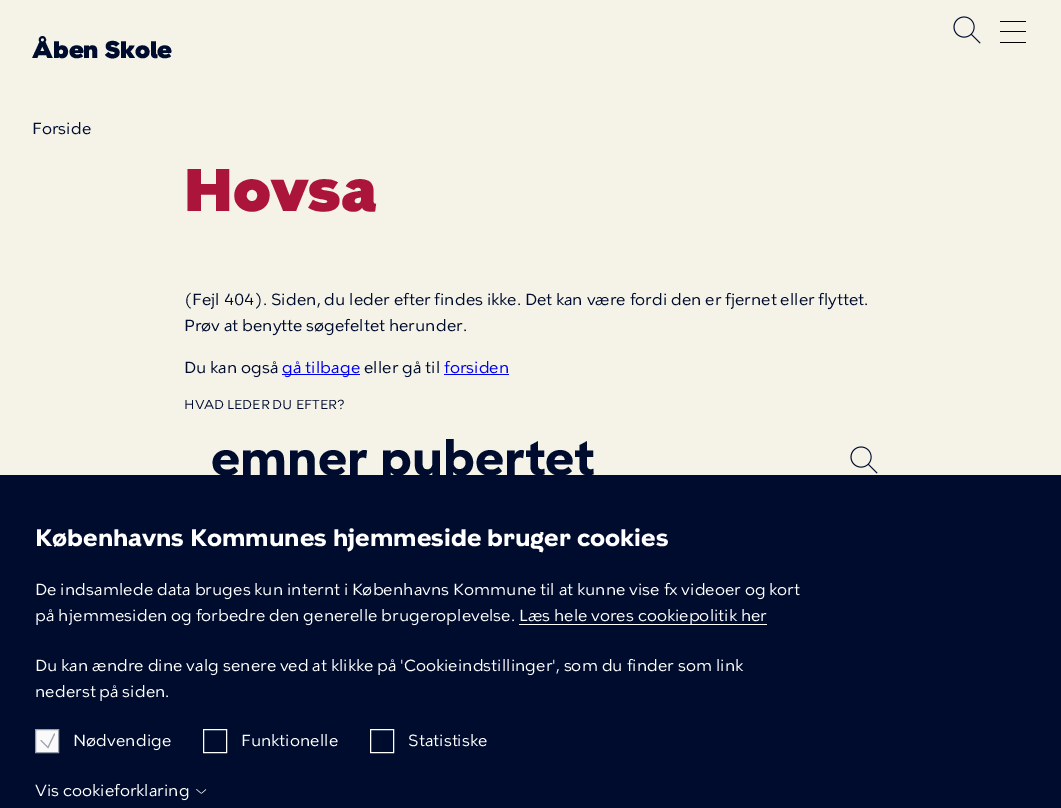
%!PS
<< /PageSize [1061 808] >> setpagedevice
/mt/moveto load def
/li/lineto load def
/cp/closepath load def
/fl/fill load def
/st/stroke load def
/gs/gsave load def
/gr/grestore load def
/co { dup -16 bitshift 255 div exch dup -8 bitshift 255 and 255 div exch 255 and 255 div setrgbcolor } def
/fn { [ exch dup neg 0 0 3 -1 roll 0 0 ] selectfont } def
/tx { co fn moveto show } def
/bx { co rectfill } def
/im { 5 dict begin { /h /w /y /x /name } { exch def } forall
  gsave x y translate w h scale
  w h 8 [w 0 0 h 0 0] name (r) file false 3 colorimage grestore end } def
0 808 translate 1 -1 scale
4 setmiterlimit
0 0 1061 808 16#F5F3E8 bx
(media/1.raw) 953 16 28 28 im
1000 21 26 1 16#000000 bx
1000 31 26 1 16#000000 bx
1000 42 26 1 16#000000 bx
282 374 78 1 16#0000EE bx
444 374 65 1 16#0000EE bx
(media/1.raw) 850 446 28 28 im
0 475 1061 333 16#000C2E bx
519 624 248 1 16#FFFFFF bx
16#FAFAFB co
35.5 729.5 mt 58.5 729.5 li 58.5 752.5 li 35.5 752.5 li cp gs fl gr
16#999EAB co
st
1 setlinecap
41 740.5 mt 48 747.5 li 54.5 734 li st
16#FFFFFF co
0 setlinecap
203.5 729.5 23 23 rectstroke
370.5 729.5 23 23 rectstroke
(media/2.raw) 196 789 11 5 im
(Åben Skole) 32 58 /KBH-Black 24 16#000C2E tx
(Forside) 32 134 /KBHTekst-Regular 16 16#000C2E tx
(Hovsa) 184 211 /KBH-Black 60 16#AC153B tx
(\(Fejl 404\). Siden, du leder efter findes ikke. Det kan være fordi den er fjernet eller flyttet.) 184 305 /KBHTekst-Regular 16 16#000C2E tx
(Prøv at benytte søgefeltet herunder.) 184 331 /KBHTekst-Regular 16 16#000C2E tx
(Du kan også) 184 373 /KBHTekst-Regular 16 16#000C2E tx
(gå tilbage) 282 373 /KBHTekst-Regular 16 16#0000EE tx
(eller gå til) 364 373 /KBHTekst-Regular 16 16#000C2E tx
(forsiden) 444 373 /KBHTekst-Regular 16 16#0000EE tx
(HVAD LEDER DU EFTER?) 184 409 /KBHTekst-Regular 13 16#000C2E tx
(emner pubertet) 211 475 /KBHTekst-Bold 48 16#000C2E tx
(Københavns Kommunes hjemmeside bruger cookies) 35 546 /KBH-Bold 24 16#FFFFFF tx
(De indsamlede data bruges kun internt i Københavns Kommune til at kunne vise fx videoer og kort) 35 595 /KBHTekst-Regular 16 16#FFFFFF tx
(på hjemmesiden og forbedre den generelle brugeroplevelse.) 35 621 /KBHTekst-Regular 16 16#FFFFFF tx
(Læs hele vores cookiepolitik her) 519 621 /KBHTekst-Regular 16 16#FFFFFF tx
(Du kan ændre dine valg senere ved at klikke på 'Cookieindstillinger', som du finder som link) 35 671 /KBHTekst-Regular 16 16#FFFFFF tx
(nederst på siden.) 35 697 /KBHTekst-Regular 16 16#FFFFFF tx
(Nødvendige) 73 746 /KBHTekst-Regular 16 16#FFFFFF tx
(Funktionelle) 241 746 /KBHTekst-Regular 16 16#FFFFFF tx
(Statistiske) 408 746 /KBHTekst-Regular 16 16#FFFFFF tx
(Vis cookieforklaring) 35 796 /KBHTekst-Regular 16 16#FFFFFF tx
showpage
